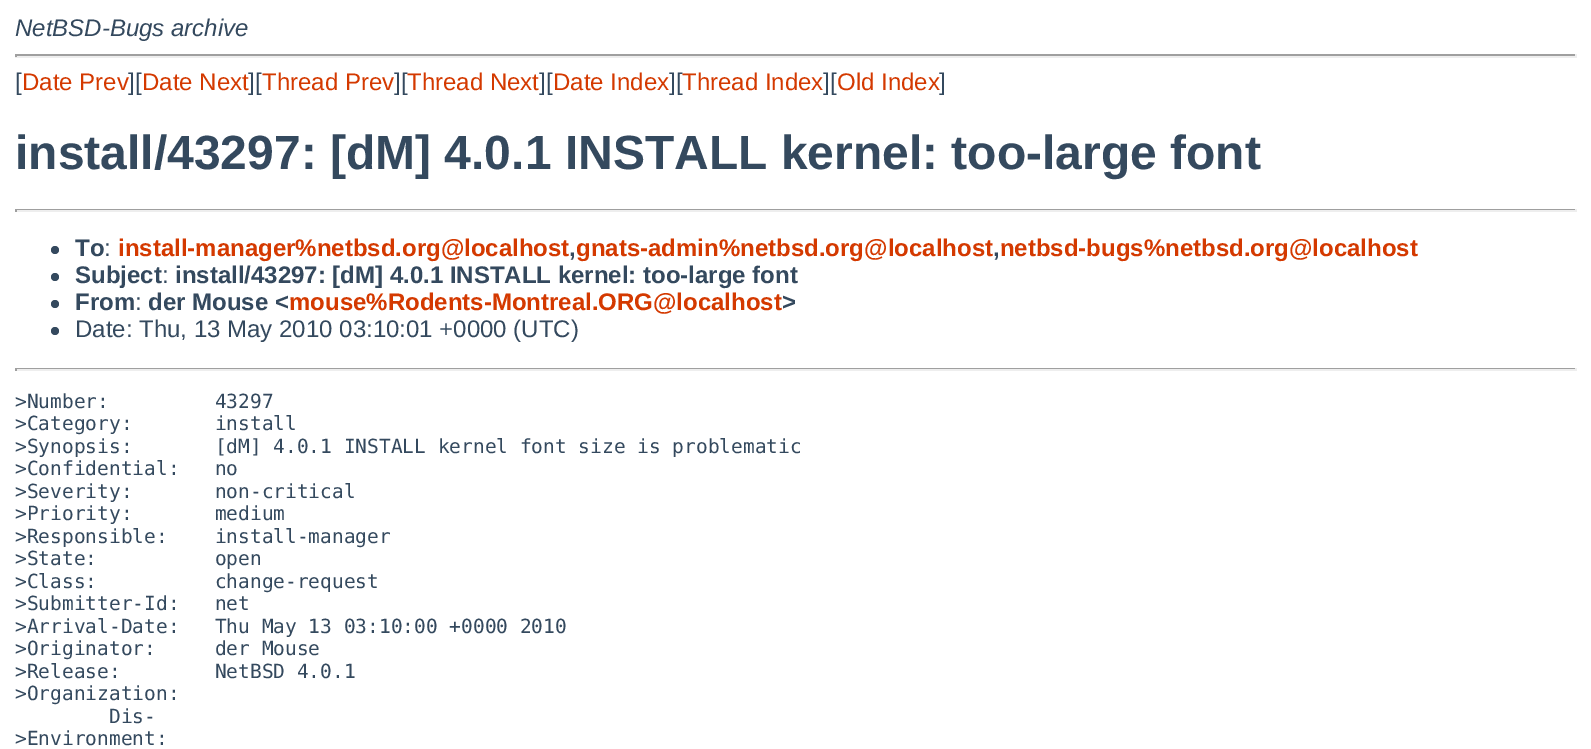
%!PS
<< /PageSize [1591 749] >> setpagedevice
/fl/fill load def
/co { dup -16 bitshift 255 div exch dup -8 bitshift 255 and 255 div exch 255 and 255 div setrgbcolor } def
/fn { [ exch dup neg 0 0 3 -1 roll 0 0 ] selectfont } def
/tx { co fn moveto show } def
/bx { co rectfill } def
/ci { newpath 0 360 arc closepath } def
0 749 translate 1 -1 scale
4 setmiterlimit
0 0 1591 749 16#FFFFFF bx
15 54 1562 2 16#9F9F9F bx
1575 54 2 3 16#EEEEEE bx
15 56 1562 2 16#EEEEEE bx
15 54 2 3 16#9F9F9F bx
15 209 1562 1 16#9F9F9F bx
1575 209 2 3 16#EEEEEE bx
15 210 1562 2 16#EEEEEE bx
15 209 2 3 16#9F9F9F bx
16#34495E co
55 250 4 ci fl
55 277 4 ci fl
55 304 4 ci fl
55 331 4 ci fl
15 368 1562 1 16#9F9F9F bx
1575 368 2 3 16#EEEEEE bx
15 369 1562 2 16#EEEEEE bx
15 368 2 3 16#9F9F9F bx
(NetBSD-Bugs archive) 15 36 /LiberationSans-Italic 24 16#34495E tx
([) 15 90 /LiberationSans-Regular 24 16#34495E tx
(Date Prev) 22 90 /LiberationSans-Regular 24 16#D43900 tx
(][) 128 90 /LiberationSans-Regular 24 16#34495E tx
(Date Next) 142 90 /LiberationSans-Regular 24 16#D43900 tx
(][) 248 90 /LiberationSans-Regular 24 16#34495E tx
(Thread Prev) 262 90 /LiberationSans-Regular 24 16#D43900 tx
(][) 394 90 /LiberationSans-Regular 24 16#34495E tx
(Thread Next) 407 90 /LiberationSans-Regular 24 16#D43900 tx
(][) 539 90 /LiberationSans-Regular 24 16#34495E tx
(Date Index) 553 90 /LiberationSans-Regular 24 16#D43900 tx
(][) 669 90 /LiberationSans-Regular 24 16#34495E tx
(Thread Index) 682 90 /LiberationSans-Regular 24 16#D43900 tx
(][) 823 90 /LiberationSans-Regular 24 16#34495E tx
(Old Index) 837 90 /LiberationSans-Regular 24 16#D43900 tx
(]) 939 90 /LiberationSans-Regular 24 16#34495E tx
(install/43297: [dM] 4.0.1 INSTALL kernel: too-large font) 15 169 /LiberationSans-Bold 48 16#34495E tx
(To) 75 256 /LiberationSans-Bold 24 16#34495E tx
(:) 104 256 /LiberationSans-Regular 24 16#34495E tx
(install-manager%netbsd.org@localhost gnats-admin%netbsd.org@localhost netbsd-bugs%netbsd.org@localhost) 118 256 /LiberationSans-Bold 24 16#D43900 tx
(,) 569 256 /LiberationSans-Bold 24 16#34495E tx
(,) 993 256 /LiberationSans-Bold 24 16#34495E tx
(Subject) 75 283 /LiberationSans-Bold 24 16#34495E tx
(:) 162 283 /LiberationSans-Regular 24 16#34495E tx
(install/43297: [dM] 4.0.1 INSTALL kernel: too-large font) 175 283 /LiberationSans-Bold 24 16#34495E tx
(From) 75 310 /LiberationSans-Bold 24 16#34495E tx
(:) 135 310 /LiberationSans-Regular 24 16#34495E tx
(der Mouse <) 148 310 /LiberationSans-Bold 24 16#34495E tx
(mouse%Rodents-Montreal.ORG@localhost) 289 310 /LiberationSans-Bold 24 16#D43900 tx
(>) 782 310 /LiberationSans-Bold 24 16#34495E tx
(Date: Thu, 13 May 2010 03:10:01 +0000 \(UTC\)) 75 337 /LiberationSans-Regular 24 16#34495E tx
(>Number:         43297) 15 408 /DejaVuSansMono-Regular 19.5 16#34495E tx
(>Category:       install) 15 430 /DejaVuSansMono-Regular 19.5 16#34495E tx
(>Synopsis:       [dM] 4.0.1 INSTALL kernel font size is problematic) 15 453 /DejaVuSansMono-Regular 19.5 16#34495E tx
(>Confidential:   no) 15 475 /DejaVuSansMono-Regular 19.5 16#34495E tx
(>Severity:       non-critical) 15 498 /DejaVuSansMono-Regular 19.5 16#34495E tx
(>Priority:       medium) 15 520 /DejaVuSansMono-Regular 19.5 16#34495E tx
(>Responsible:    install-manager) 15 543 /DejaVuSansMono-Regular 19.5 16#34495E tx
(>State:          open) 15 565 /DejaVuSansMono-Regular 19.5 16#34495E tx
(>Class:          change-request) 15 588 /DejaVuSansMono-Regular 19.5 16#34495E tx
(>Submitter-Id:   net) 15 610 /DejaVuSansMono-Regular 19.5 16#34495E tx
(>Arrival-Date:   Thu May 13 03:10:00 +0000 2010) 15 633 /DejaVuSansMono-Regular 19.5 16#34495E tx
(>Originator:     der Mouse) 15 655 /DejaVuSansMono-Regular 19.5 16#34495E tx
(>Release:        NetBSD 4.0.1) 15 678 /DejaVuSansMono-Regular 19.5 16#34495E tx
(>Organization:) 15 700 /DejaVuSansMono-Regular 19.5 16#34495E tx
(Dis-) 109 723 /DejaVuSansMono-Regular 19.5 16#34495E tx
(>Environment:) 15 745 /DejaVuSansMono-Regular 19.5 16#34495E tx
showpage
